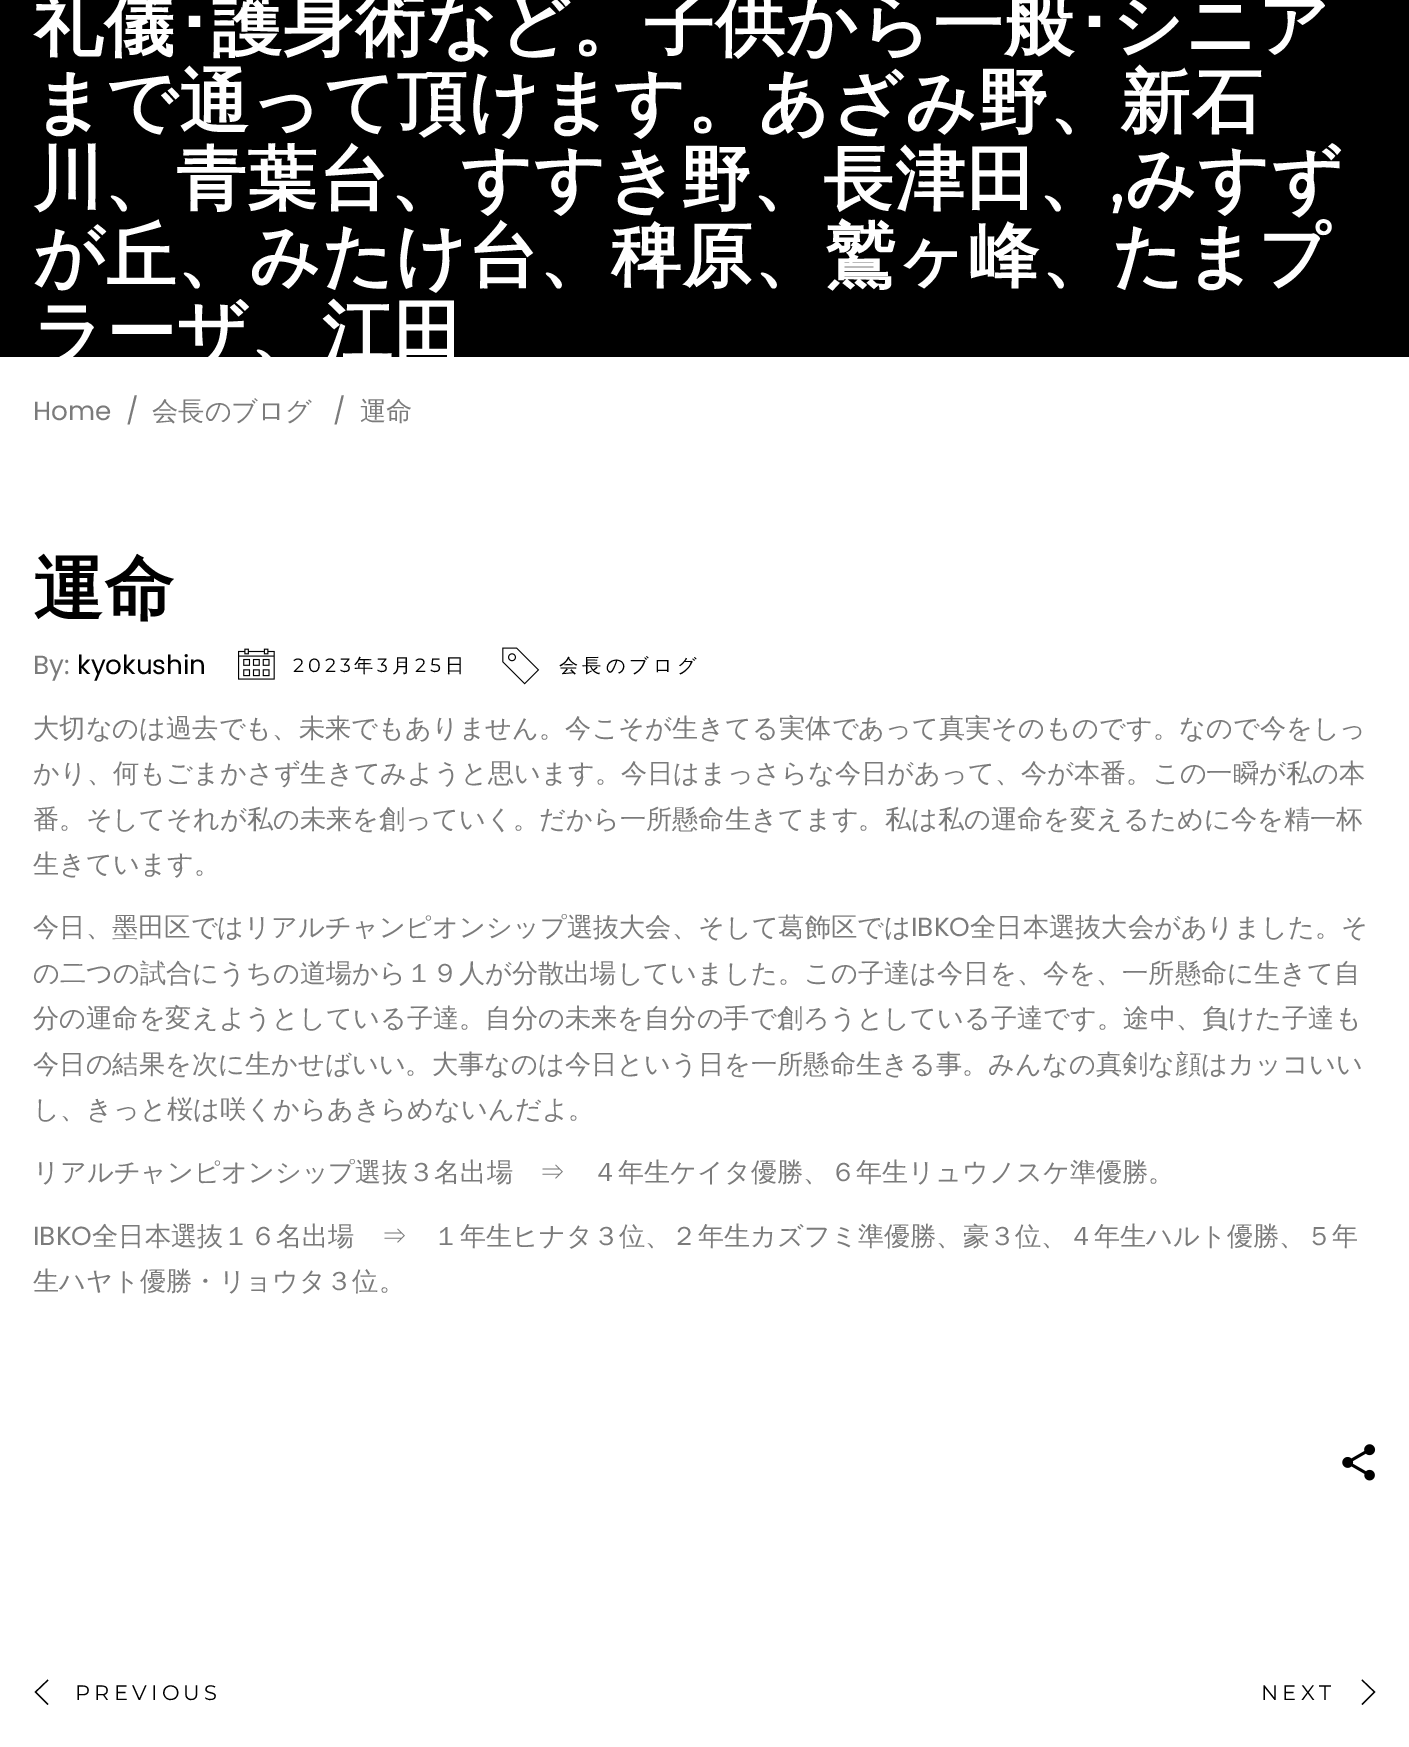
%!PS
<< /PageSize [1409 1747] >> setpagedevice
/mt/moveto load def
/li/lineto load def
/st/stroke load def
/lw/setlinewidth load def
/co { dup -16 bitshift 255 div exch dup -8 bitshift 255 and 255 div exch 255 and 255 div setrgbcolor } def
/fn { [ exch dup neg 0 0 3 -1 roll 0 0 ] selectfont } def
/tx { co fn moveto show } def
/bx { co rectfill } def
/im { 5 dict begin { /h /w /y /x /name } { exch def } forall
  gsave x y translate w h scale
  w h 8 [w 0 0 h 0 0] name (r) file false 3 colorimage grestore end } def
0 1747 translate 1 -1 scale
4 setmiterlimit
0 0 1409 1747 16#FFFFFF bx
0 0 1409 357 16#000000 bx
(media/1.raw) 238 648 37 32 im
(media/2.raw) 502 647 38 38 im
(media/3.raw) 1342 1444 34 37 im
1.2 lw
48 1704.5 mt 35.5 1692 li 48 1680 li st
1362 1704.5 mt 1374.5 1692 li 1362 1680 li st
/WenQuanYiZenHei-Bold 70 fn
16#FFFFFF co
33 49 mt 1.4 0 (礼儀) ashow
/IPAPGothic-Bold 70 fn
176 49 mt 1.4 0 (･) ashow
/WenQuanYiZenHei-Bold 70 fn
212 49 mt 1.4 0 (護身術など。子供から一般) ashow
/IPAPGothic-Bold 70 fn
1076 49 mt 1.4 0 (･) ashow
/WenQuanYiZenHei-Bold 70 fn
1112 49 mt 1.4 0 (シニア) ashow
33 126 mt 1.4 0 (まで通って頂けます。あざみ野、新石) ashow
33 203 mt 1.4 0 (川、青葉台、すすき野、長津田、) ashow
/Montserrat-Bold 70 fn
1109 203 mt 1.4 0 (,) ashow
/WenQuanYiZenHei-Bold 70 fn
1125 203 mt 1.4 0 (みすず) ashow
33 280 mt 1.4 0 (が丘、みたけ台、稗原、鷲ヶ峰、たまプ) ashow
33 357 mt 1.4 0 (ラーザ、江田) ashow
(Home) 33 420 /Poppins-Regular 26.25 16#7B7B7B tx
(/) 126 420 /Poppins-Regular 26.25 16#7B7B7B tx
(会長のブログ) 152 420 /WenQuanYiZenHei-Medium 26.25 16#7B7B7B tx
(/) 333 420 /Poppins-Regular 26.25 16#7B7B7B tx
(運命) 360 420 /WenQuanYiZenHei-Medium 26.25 16#7B7B7B tx
/WenQuanYiZenHei-Bold 70 fn
16#000000 co
33 613 mt 1.4 0 (運命) ashow
(By:) 33 674 /Poppins-Regular 26.25 16#7B7B7B tx
(kyokushin) 77 674 /Poppins-Regular 26.25 16#000000 tx
/Montserrat-Thin 19.25 fn
293 672 mt 4 0 (2023) ashow
/WenQuanYiZenHei-Medium 19.25 fn
354 672 mt 4 0 (年) ashow
/Montserrat-Thin 19.25 fn
377 672 mt 4 0 (3) ashow
/WenQuanYiZenHei-Medium 19.25 fn
392 672 mt 4 0 (月) ashow
/Montserrat-Thin 19.25 fn
415 672 mt 4 0 (25) ashow
/WenQuanYiZenHei-Medium 19.25 fn
445 672 mt 4 0 (日) ashow
559 672 mt 4 0 (会長のブログ) ashow
(大切なのは過去でも、未来でもありません。今こそが生きてる実体であって真実そのものです。なので今をしっ) 33 737 /WenQuanYiZenHei-Medium 26.25 16#7B7B7B tx
(かり、何もごまかさず生きてみようと思います。今日はまっさらな今日があって、今が本番。この一瞬が私の本) 33 782 /WenQuanYiZenHei-Medium 26.25 16#7B7B7B tx
(番。そしてそれが私の未来を創っていく。だから一所懸命生きてます。私は私の運命を変えるために今を精一杯) 33 828 /WenQuanYiZenHei-Medium 26.25 16#7B7B7B tx
(生きています。) 33 873 /WenQuanYiZenHei-Medium 26.25 16#7B7B7B tx
(今日、墨田区ではリアルチャンピオンシップ選抜大会、そして葛飾区では) 33 936 /WenQuanYiZenHei-Medium 26.25 16#7B7B7B tx
(IBKO) 911 936 /Poppins-Regular 26.25 16#7B7B7B tx
(全日本選抜大会がありました。そ) 970 936 /WenQuanYiZenHei-Medium 26.25 16#7B7B7B tx
(の二つの試合にうちの道場から１９人が分散出場していました。この子達は今日を、今を、一所懸命に生きて自) 33 982 /WenQuanYiZenHei-Medium 26.25 16#7B7B7B tx
(分の運命を変えようとしている子達。自分の未来を自分の手で創ろうとしている子達です。途中、負けた子達も) 33 1027 /WenQuanYiZenHei-Medium 26.25 16#7B7B7B tx
(今日の結果を次に生かせばいい。大事なのは今日という日を一所懸命生きる事。みんなの真剣な顔はカッコいい) 33 1073 /WenQuanYiZenHei-Medium 26.25 16#7B7B7B tx
(し、きっと桜は咲くからあきらめないんだよ。) 33 1118 /WenQuanYiZenHei-Medium 26.25 16#7B7B7B tx
(リアルチャンピオンシップ選抜３名出場　⇒　４年生ケイタ優勝、６年生リュウノスケ準優勝。) 33 1181 /WenQuanYiZenHei-Medium 26.25 16#7B7B7B tx
(IBKO) 33 1245 /Poppins-Regular 26.25 16#7B7B7B tx
(全日本選抜１６名出場　⇒　１年生ヒナタ３位、２年生カズフミ準優勝、豪３位、４年生ハルト優勝、５年) 92 1245 /WenQuanYiZenHei-Medium 26.25 16#7B7B7B tx
(生ハヤト優勝・リョウタ３位。) 33 1290 /WenQuanYiZenHei-Medium 26.25 16#7B7B7B tx
/Montserrat-Thin 21 fn
16#000000 co
75 1700 mt 4.25 0 (PREVIOUS) ashow
1261 1700 mt 4.25 0 (NEXT) ashow
showpage
